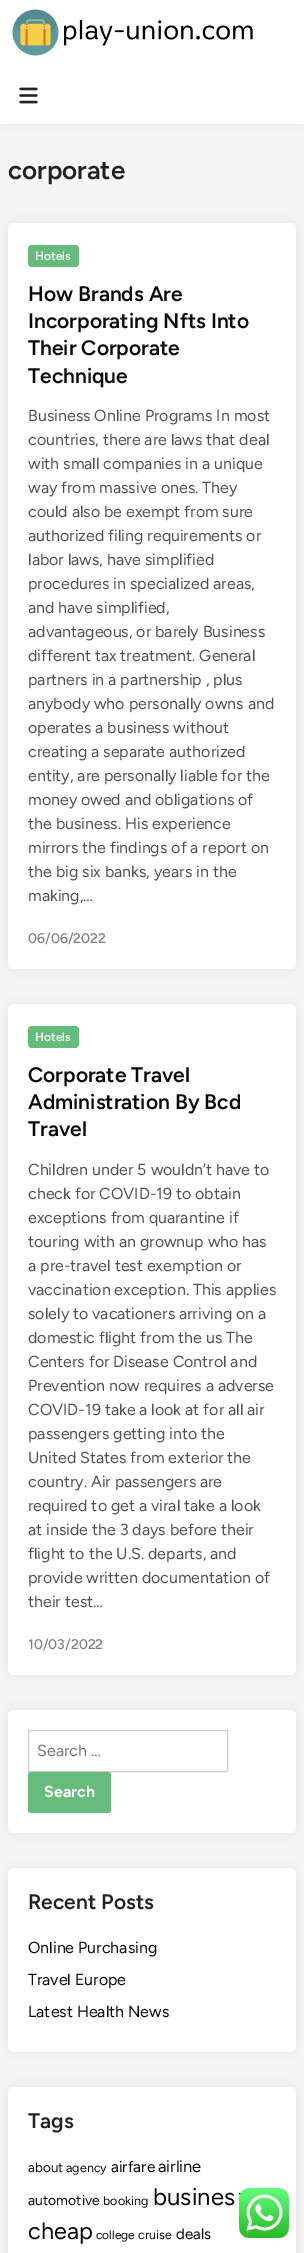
%!PS
<< /PageSize [304 2253] /PageUsesTransparency true >> setpagedevice
/fl/fill load def
/co { dup -16 bitshift 255 div exch dup -8 bitshift 255 and 255 div exch 255 and 255 div setrgbcolor } def
/fn { [ exch dup neg 0 0 3 -1 roll 0 0 ] selectfont } def
/tx { co fn moveto show } def
/bx { co rectfill } def
/al { dup .setfillconstantalpha .setstrokeconstantalpha } def
/rr { 5 dict begin { /r /h /w /y /x } { exch def } forall
  x r add y moveto x w add y 2 copy h add r arct x w add y h add x 1 index r arct
  x y h add x y r arct x y 2 copy exch w add exch r arct closepath end } def
/sh { 12 dict begin { /a /b /q /h /w /y /x } { exch def } forall gsave /was 0 def
  9 -2 -9 { dup b mul 4 div /e exch def 1 sub .425 mul 2.718 exch exp 1 add a .99 .min exch div /now exch def
    1 1 now sub 1 was sub div sub al /was now def
    w h .min e 2 mul add 0 gt { x e sub y e sub w e 2 mul add h e 2 mul add
      q e add b .6 mul add w h .min 2 div e add .min 0 .max rr fill } if } for grestore end } def
/im { 5 dict begin { /h /w /y /x /name } { exch def } forall
  gsave x y translate w h scale
  w h 8 [w 0 0 h 0 0] name (r) file false 3 colorimage grestore end } def
0 .pushpdf14devicefilter
0 2253 translate 1 -1 scale
4 setmiterlimit
0 0 304 2253 16#F5F5F5 bx
16#000000 co
0 0 304 124 0 7.5 .06 sh
0 0 304 124 16#FFFFFF bx
(media/1.raw) 12 9 241 47 im
(media/2.raw) 19 87 19 17 im
16#000000 co
8 223 288 746 6 7.5 .06 sh
16#FFFFFF co
8 223 288 746 6 rr fl
16#65BC7B co
28 245 51 22 4 rr fl
16#000000 co
8 1004 288 671 6 7.5 .06 sh
16#FFFFFF co
8 1004 288 671 6 rr fl
16#65BC7B co
28 1026 51 22 4 rr fl
16#000000 co
8 1710 288 123 6 7.5 .06 sh
16#FFFFFF co
8 1710 288 123 6 rr fl
16#CCCCCC co
28.5 1730.5 199 41 rectstroke
16#65BC7B co
28 1772 83 41 3 rr fl
16#000000 co
8 1868 288 184 6 7.5 .06 sh
16#FFFFFF co
8 1868 288 184 6 rr fl
16#000000 co
8 2087 288 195 6 7.5 .06 sh
16#FFFFFF co
8 2087 288 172 6 rr fl
(media/3.raw) 239 2188 50 50 im
(corporate) 8 179 /Figtree-SemiBold 26 16#222222 tx
(Hotels) 35 260 /Figtree-SemiBold 12 16#FFFFFF tx
(How Brands Are) 28 301 /Figtree-SemiBold 21 16#0A0808 tx
(Incorporating Nfts Into) 28 328 /Figtree-SemiBold 21 16#0A0808 tx
(Their Corporate) 28 355 /Figtree-SemiBold 21 16#0A0808 tx
(Technique) 28 383 /Figtree-SemiBold 21 16#0A0808 tx
(Business Online Programs In most) 28 421 /Figtree-Regular 16 16#505050 tx
(countries, there are laws that deal) 28 445 /Figtree-Regular 16 16#505050 tx
(with small companies in a unique) 28 469 /Figtree-Regular 16 16#505050 tx
(way from massive ones. They) 28 493 /Figtree-Regular 16 16#505050 tx
(could also be exempt from sure) 28 517 /Figtree-Regular 16 16#505050 tx
(authorized filing requirements or) 28 541 /Figtree-Regular 16 16#505050 tx
(labor laws, have simplified) 28 565 /Figtree-Regular 16 16#505050 tx
(procedures in specialized areas,) 28 589 /Figtree-Regular 16 16#505050 tx
(and have simplified,) 28 613 /Figtree-Regular 16 16#505050 tx
(advantageous, or barely Business) 28 637 /Figtree-Regular 16 16#505050 tx
(different tax treatment. General) 28 661 /Figtree-Regular 16 16#505050 tx
(partners in a partnership , plus) 28 685 /Figtree-Regular 16 16#505050 tx
(anybody who personally owns and) 28 709 /Figtree-Regular 16 16#505050 tx
(operates a business without) 28 733 /Figtree-Regular 16 16#505050 tx
(creating a separate authorized) 28 757 /Figtree-Regular 16 16#505050 tx
(entity, are personally liable for the) 28 781 /Figtree-Regular 16 16#505050 tx
(money owed and obligations of) 28 805 /Figtree-Regular 16 16#505050 tx
(the business. His experience) 28 829 /Figtree-Regular 16 16#505050 tx
(mirrors the findings of a report on) 28 853 /Figtree-Regular 16 16#505050 tx
(the big six banks, years in the) 28 877 /Figtree-Regular 16 16#505050 tx
(making,…) 28 901 /Figtree-Regular 16 16#505050 tx
(06/06/2022) 28 943 /Figtree-Medium 14 16#7D7D7D tx
(Hotels) 35 1041 /Figtree-SemiBold 12 16#FFFFFF tx
(Corporate Travel) 28 1082 /Figtree-SemiBold 21 16#0A0808 tx
(Administration By Bcd) 28 1109 /Figtree-SemiBold 21 16#0A0808 tx
(Travel) 28 1136 /Figtree-SemiBold 21 16#0A0808 tx
(Children under 5 wouldn’t have to) 28 1175 /Figtree-Regular 16 16#505050 tx
(check for COVID-19 to obtain) 28 1199 /Figtree-Regular 16 16#505050 tx
(exceptions from quarantine if) 28 1223 /Figtree-Regular 16 16#505050 tx
(touring with an grownup who has) 28 1247 /Figtree-Regular 16 16#505050 tx
(a pre-travel test exemption or) 28 1271 /Figtree-Regular 16 16#505050 tx
(vaccination exception. This applies) 28 1295 /Figtree-Regular 16 16#505050 tx
(solely to vacationers arriving on a) 28 1319 /Figtree-Regular 16 16#505050 tx
(domestic flight from the us The) 28 1343 /Figtree-Regular 16 16#505050 tx
(Centers for Disease Control and) 28 1367 /Figtree-Regular 16 16#505050 tx
(Prevention now requires a adverse) 28 1391 /Figtree-Regular 16 16#505050 tx
(COVID-19 take a look at for all air) 28 1415 /Figtree-Regular 16 16#505050 tx
(passengers getting into the) 28 1439 /Figtree-Regular 16 16#505050 tx
(United States from exterior the) 28 1463 /Figtree-Regular 16 16#505050 tx
(country. Air passengers are) 28 1487 /Figtree-Regular 16 16#505050 tx
(required to get a viral take a look) 28 1511 /Figtree-Regular 16 16#505050 tx
(at inside the 3 days before their) 28 1535 /Figtree-Regular 16 16#505050 tx
(flight to the U.S. departs, and) 28 1559 /Figtree-Regular 16 16#505050 tx
(provide written documentation of) 28 1583 /Figtree-Regular 16 16#505050 tx
(their test…) 28 1607 /Figtree-Regular 16 16#505050 tx
(10/03/2022) 28 1649 /Figtree-Medium 14 16#7D7D7D tx
(Search …) 37 1756 /Figtree-Regular 16 16#757575 tx
(Search) 44 1797 /Figtree-Bold 16 16#FFFFFF tx
(Recent Posts) 28 1909 /Figtree-SemiBold 21 16#222222 tx
(Online Purchasing) 28 1953 /Figtree-Regular 16 16#0A0808 tx
(Travel Europe) 28 1985 /Figtree-Regular 16 16#0A0808 tx
(Latest Health News) 28 2017 /Figtree-Regular 16 16#0A0808 tx
(Tags) 28 2128 /Figtree-SemiBold 21 16#222222 tx
(about) 28 2172 /Figtree-Regular 13.5 16#0A0808 tx
(agency) 66 2172 /Figtree-Regular 12.5 16#0A0808 tx
(airfare) 111 2172 /Figtree-Regular 15.5 16#0A0808 tx
(airline) 158 2172 /Figtree-Regular 16.5 16#0A0808 tx
(automotive) 28 2205 /Figtree-Regular 14 16#0A0808 tx
(booking) 103 2205 /Figtree-Regular 12.5 16#0A0808 tx
(busines) 153 2205 /Figtree-Regular 24 16#0A0808 tx
(cheap) 28 2239 /Figtree-Regular 23.5 16#0A0808 tx
(college) 96 2239 /Figtree-Regular 12 16#0A0808 tx
(cruise) 138 2239 /Figtree-Regular 12.5 16#0A0808 tx
(deals) 176 2239 /Figtree-Regular 15 16#0A0808 tx
.poppdf14devicefilter showpage
